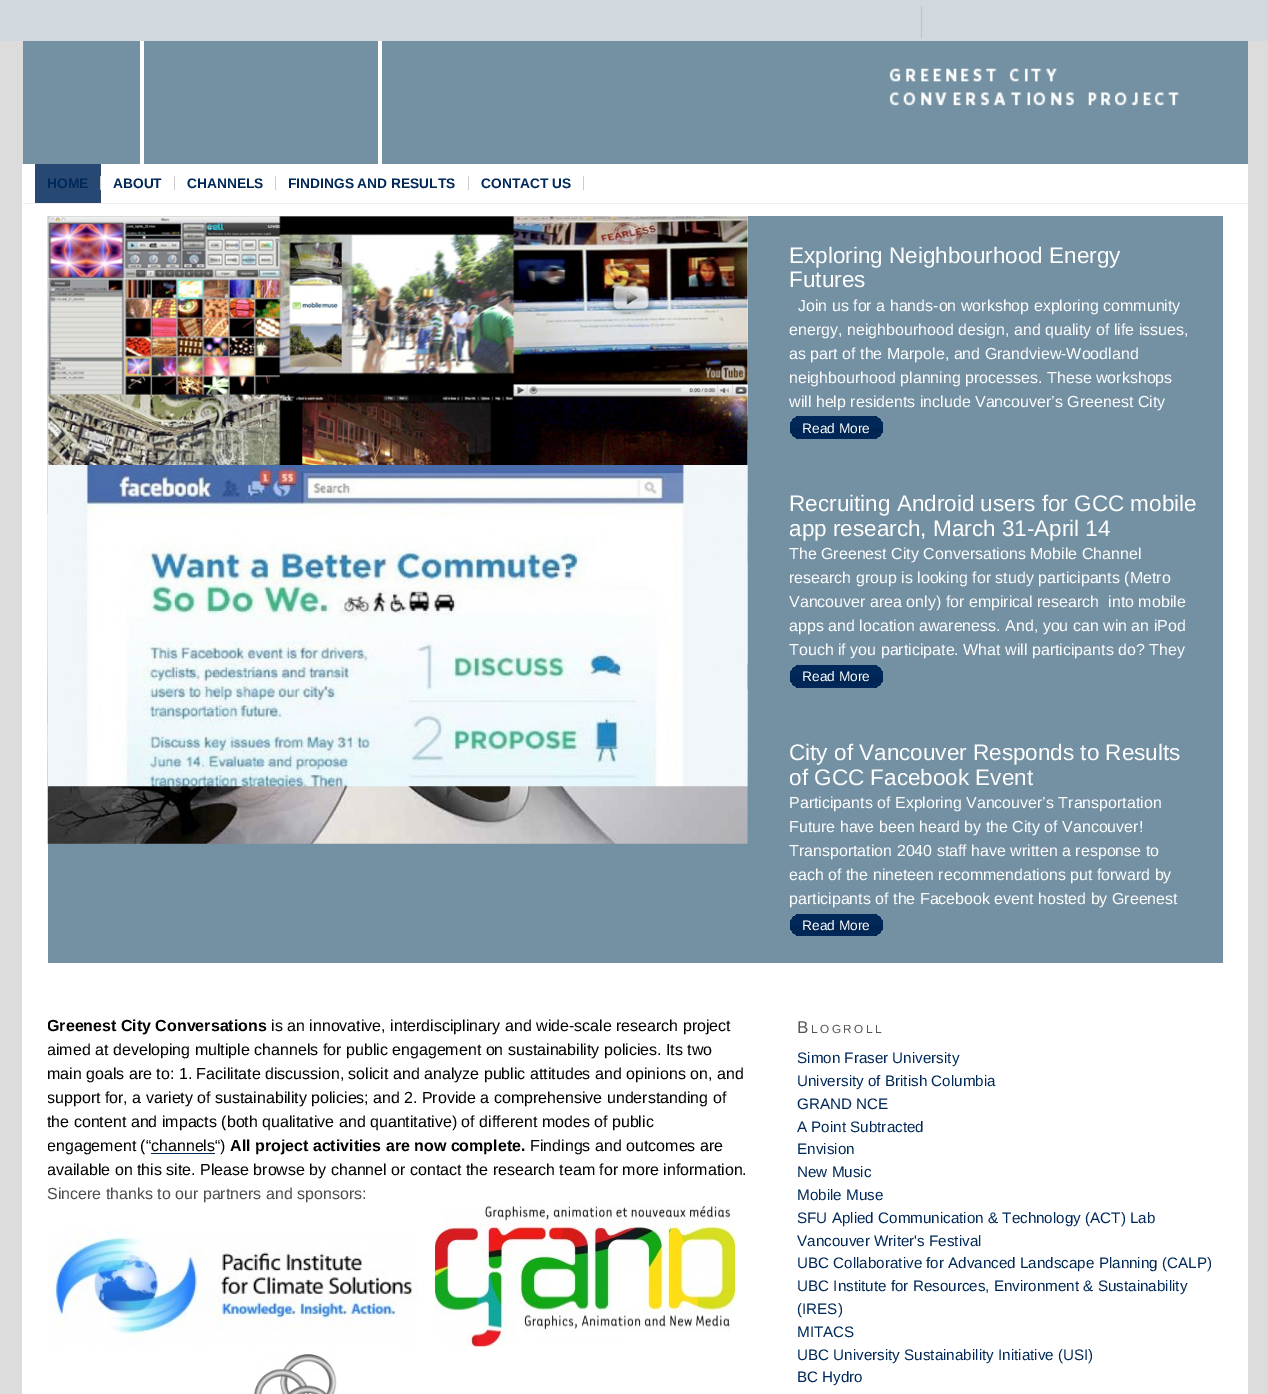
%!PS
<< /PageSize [1268 1394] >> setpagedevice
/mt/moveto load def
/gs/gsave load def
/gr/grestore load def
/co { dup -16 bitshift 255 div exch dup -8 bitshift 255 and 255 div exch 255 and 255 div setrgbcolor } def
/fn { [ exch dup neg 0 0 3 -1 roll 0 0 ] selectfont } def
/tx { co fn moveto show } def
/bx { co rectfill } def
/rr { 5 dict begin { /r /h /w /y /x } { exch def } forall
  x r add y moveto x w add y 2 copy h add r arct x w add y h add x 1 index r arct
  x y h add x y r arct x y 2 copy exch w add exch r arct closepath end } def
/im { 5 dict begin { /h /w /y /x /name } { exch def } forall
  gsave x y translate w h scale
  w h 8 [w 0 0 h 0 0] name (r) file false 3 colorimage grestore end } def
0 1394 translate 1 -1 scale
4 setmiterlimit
0 0 1268 1394 16#DCDCDC bx
22 164 1226 1230 16#FFFFFF bx
0 0 1268 41 16#D1D9DE bx
921 6 1 32 16#BCC3C7 bx
23 41 1225 123 16#7491A3 bx
140 41 4 123 16#FFFFFF bx
378 41 4 123 16#FFFFFF bx
(media/1.raw) 889 68 290 38 im
23 203 1225 1 16#EEEEEE bx
35 164 66 39 16#264872 bx
100 176 1 14 16#CCCCCC bx
174 176 1 14 16#CCCCCC bx
275 176 1 14 16#CCCCCC bx
468 176 1 14 16#CCCCCC bx
583 176 1 14 16#CCCCCC bx
48 216 1175 747 16#7491A3 bx
(media/3.raw) 47 216 701 298 im
(media/2.raw) 47 216 701 298 im
747 415 1 25 16#7491A3 bx
gs 790 416 93 23 11.5 rr clip newpath
<< /ShadingType 2 /ColorSpace /DeviceRGB /Coords [790 416 790 439] /Extend [true true] /Function << /FunctionType 3 /Domain [0 1] /Functions [<< /FunctionType 2 /Domain [0 1] /C0 [0 .157 .349] /C1 [0 .157 .349] /N 1 >> << /FunctionType 2 /Domain [0 1] /C0 [0 .157 .349] /C1 [0 .141 .314] /N 1 >> << /FunctionType 2 /Domain [0 1] /C0 [0 .141 .314] /C1 [0 .157 .349] /N 1 >>] /Bounds [.5 .51] /Encode [0 1 0 1 0 1] >> >> shfill gr
(media/5.raw) 47 216 701 347 im
(media/4.raw) 47 465 701 379 im
747 664 1 25 16#7491A3 bx
gs 790 665 93 23 11.5 rr clip newpath
<< /ShadingType 2 /ColorSpace /DeviceRGB /Coords [790 665 790 688] /Extend [true true] /Function << /FunctionType 3 /Domain [0 1] /Functions [<< /FunctionType 2 /Domain [0 1] /C0 [0 .157 .349] /C1 [0 .157 .349] /N 1 >> << /FunctionType 2 /Domain [0 1] /C0 [0 .157 .349] /C1 [0 .141 .314] /N 1 >> << /FunctionType 2 /Domain [0 1] /C0 [0 .141 .314] /C1 [0 .157 .349] /N 1 >>] /Bounds [.5 .51] /Encode [0 1 0 1 0 1] >> >> shfill gr
(media/6.raw) 47 465 701 322 im
gs 790 914 93 22 11 rr clip newpath
<< /ShadingType 2 /ColorSpace /DeviceRGB /Coords [790 914 790 936] /Extend [true true] /Function << /FunctionType 3 /Domain [0 1] /Functions [<< /FunctionType 2 /Domain [0 1] /C0 [0 .157 .349] /C1 [0 .157 .349] /N 1 >> << /FunctionType 2 /Domain [0 1] /C0 [0 .157 .349] /C1 [0 .141 .314] /N 1 >> << /FunctionType 2 /Domain [0 1] /C0 [0 .141 .314] /C1 [0 .157 .349] /N 1 >>] /Bounds [.5 .51] /Encode [0 1 0 1 0 1] >> >> shfill gr
151 1153 64 1 16#002859 bx
(media/7.raw) 47 1230 370 116 im
(media/8.raw) 435 1206 300 141 im
(media/9.raw) 254 1354 83 40 im
(HOME) 47 188 /LiberationSans-Bold 13.75 16#002859 tx
(ABOUT) 113 188 /LiberationSans-Bold 13.75 16#002859 tx
(CHANNELS) 187 188 /LiberationSans-Bold 13.75 16#002859 tx
(FINDINGS AND RESULTS) 288 188 /LiberationSans-Bold 13.75 16#002859 tx
(CONTACT US) 481 188 /LiberationSans-Bold 13.75 16#002859 tx
(Exploring Neighbourhood Energy) 789 263 /LiberationSans-Regular 22.5 16#FFFFFF tx
(Futures) 789 287 /LiberationSans-Regular 22.5 16#FFFFFF tx
(Join us for a hands-on workshop exploring community) 798 311 /LiberationSans-Regular 16 16#FFFFFF tx
(energy, neighbourhood design, and quality of life issues,) 789 335 /LiberationSans-Regular 16 16#FFFFFF tx
(as part of the Marpole, and Grandview-Woodland) 789 359 /LiberationSans-Regular 16 16#FFFFFF tx
(neighbourhood planning processes. These workshops) 789 383 /LiberationSans-Regular 16 16#FFFFFF tx
(will help residents include Vancouver’s Greenest City) 789 407 /LiberationSans-Regular 16 16#FFFFFF tx
(Read More) 802 433 /LiberationSans-Regular 13.75 16#FFFFFF tx
(Recruiting Android users for GCC mobile) 789 511 /LiberationSans-Regular 22.5 16#FFFFFF tx
(app research, March 31-April 14) 789 536 /LiberationSans-Regular 22.5 16#FFFFFF tx
(The Greenest City Conversations Mobile Channel) 789 559 /LiberationSans-Regular 16 16#FFFFFF tx
(research group is looking for study participants \(Metro) 789 583 /LiberationSans-Regular 16 16#FFFFFF tx
(Vancouver area only\) for empirical research  into mobile) 789 607 /LiberationSans-Regular 16 16#FFFFFF tx
(apps and location awareness. And, you can win an iPod) 789 631 /LiberationSans-Regular 16 16#FFFFFF tx
(Touch if you participate. What will participants do? They) 789 655 /LiberationSans-Regular 16 16#FFFFFF tx
(Read More) 802 681 /LiberationSans-Regular 13.75 16#FFFFFF tx
(City of Vancouver Responds to Results) 789 760 /LiberationSans-Regular 22.5 16#FFFFFF tx
(of GCC Facebook Event) 789 785 /LiberationSans-Regular 22.5 16#FFFFFF tx
(Participants of Exploring Vancouver’s Transportation) 789 808 /LiberationSans-Regular 16 16#FFFFFF tx
(Future have been heard by the City of Vancouver!) 789 832 /LiberationSans-Regular 16 16#FFFFFF tx
(Transportation 2040 staff have written a response to) 789 856 /LiberationSans-Regular 16 16#FFFFFF tx
(each of the nineteen recommendations put forward by) 789 880 /LiberationSans-Regular 16 16#FFFFFF tx
(participants of the Facebook event hosted by Greenest) 789 904 /LiberationSans-Regular 16 16#FFFFFF tx
(Read More) 802 930 /LiberationSans-Regular 13.75 16#FFFFFF tx
gs
48 1014 700 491 rectclip
(Greenest City Conversations) 47 1031 /LiberationSans-Bold 16 16#000000 tx
gr
(is an innovative, interdisciplinary and wide-scale research project) 271 1031 /LiberationSans-Regular 16 16#000000 tx
gs
48 1014 700 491 rectclip
(aimed at developing multiple channels for public engagement on sustainability policies. Its two) 47 1055 /LiberationSans-Regular 16 16#000000 tx
gr
(main goals are to: 1. Facilitate discussion, solicit and analyze public attitudes and opinions on, and) 47 1079 /LiberationSans-Regular 16 16#000000 tx
gs
48 1014 700 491 rectclip
(support for, a variety of sustainability policies; and) 47 1103 /LiberationSans-Regular 16 16#000000 tx
gr
(2. Provide a comprehensive understanding of) 404 1103 /LiberationSans-Regular 16 16#000000 tx
(the content and impacts \(both qualitative and quantitative\) of different modes of public) 47 1127 /LiberationSans-Regular 16 16#000000 tx
gs
48 1014 700 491 rectclip
(engagement \(“) 47 1151 /LiberationSans-Regular 16 16#000000 tx
gr
(channels“\)) 151 1151 /LiberationSans-Regular 16 16#000000 tx
(All project activities are now complete.) 230 1151 /LiberationSans-Bold 16 16#000000 tx
(Findings and outcomes are) 530 1151 /LiberationSans-Regular 16 16#000000 tx
gs
48 1014 700 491 rectclip
(available on this site. Please browse by channel or contact the research team for more information.) 47 1175 /LiberationSans-Regular 16 16#000000 tx
gr
(Sincere thanks to our partners and sponsors:) 47 1199 /LiberationSans-Regular 16 16#4D4D4D tx
/LiberationSans-Regular 17 fn
16#555555 co
797 1033 mt 2.5 0 (B) ashow
/LiberationSans-Regular 11.75 fn
811 1033 mt 2.5 0 (LOGROLL) ashow
(Simon Fraser University) 797 1063 /LiberationSans-Regular 15.2 16#002859 tx
(University of British Columbia) 797 1086 /LiberationSans-Regular 15.2 16#002859 tx
(GRAND NCE) 797 1109 /LiberationSans-Regular 15.2 16#002859 tx
(A Point Subtracted) 797 1132 /LiberationSans-Regular 15.2 16#002859 tx
(Envision) 797 1154 /LiberationSans-Regular 15.2 16#002859 tx
(New Music) 797 1177 /LiberationSans-Regular 15.2 16#002859 tx
(Mobile Muse) 797 1200 /LiberationSans-Regular 15.2 16#002859 tx
(SFU Aplied Communication & Technology \(ACT\) Lab) 797 1223 /LiberationSans-Regular 15.2 16#002859 tx
(Vancouver Writer's Festival) 797 1246 /LiberationSans-Regular 15.2 16#002859 tx
(UBC Collaborative for Advanced Landscape Planning \(CALP\)) 797 1268 /LiberationSans-Regular 15.2 16#002859 tx
(UBC Institute for Resources, Environment & Sustainability) 797 1291 /LiberationSans-Regular 15.2 16#002859 tx
(\(IRES\)) 797 1314 /LiberationSans-Regular 15.2 16#002859 tx
(MITACS) 797 1337 /LiberationSans-Regular 15.2 16#002859 tx
(UBC University Sustainability Initiative \(USI\)) 797 1360 /LiberationSans-Regular 15.2 16#002859 tx
(BC Hydro) 797 1382 /LiberationSans-Regular 15.2 16#002859 tx
showpage
